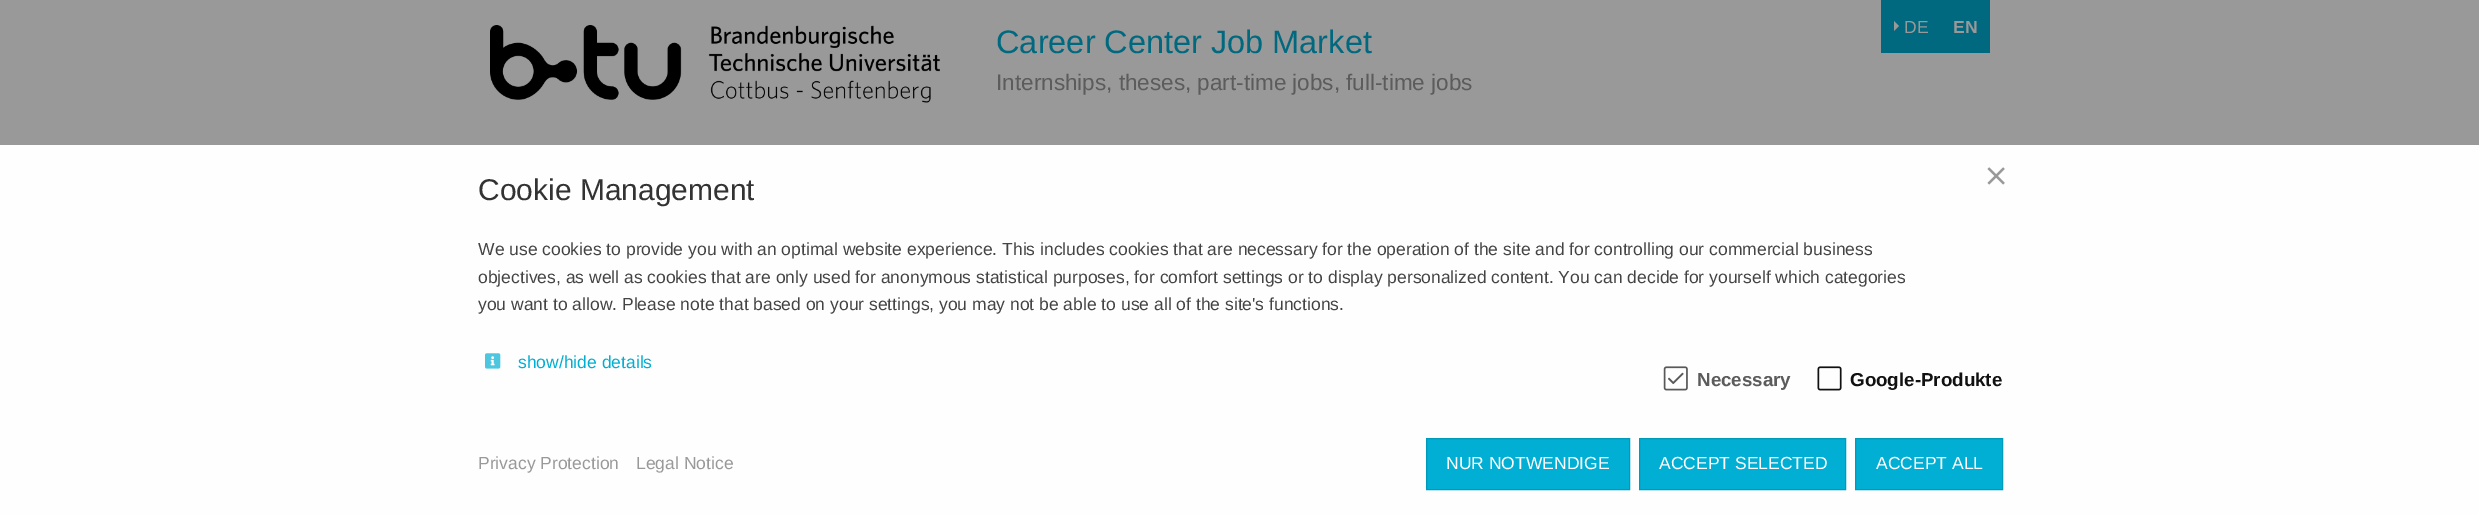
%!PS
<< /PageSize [2479 515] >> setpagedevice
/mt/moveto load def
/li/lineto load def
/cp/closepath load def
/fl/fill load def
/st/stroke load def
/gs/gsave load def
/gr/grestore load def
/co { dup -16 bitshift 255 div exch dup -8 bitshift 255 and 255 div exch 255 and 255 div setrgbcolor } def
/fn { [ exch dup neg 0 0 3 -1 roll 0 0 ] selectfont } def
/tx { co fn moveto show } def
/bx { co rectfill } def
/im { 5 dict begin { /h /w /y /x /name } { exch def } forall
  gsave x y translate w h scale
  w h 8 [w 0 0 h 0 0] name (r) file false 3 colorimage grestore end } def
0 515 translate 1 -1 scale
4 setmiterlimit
0 0 2479 515 16#999999 bx
1881 0 109 53 16#00697F bx
16#999999 co
1894 31 mt 1894 21 li 1899 26 li cp fl
(media/1.raw) 490 25 450 78 im
0 145 2479 370 16#FEFEFE bx
(media/2.raw) 1987 167 18 18 im
(media/3.raw) 485 353 16 16 im
(media/4.raw) 1663 366 25 25 im
(media/5.raw) 1817 366 25 25 im
16#00AFD3 co
1426.5 438.5 mt 1629.5 438.5 li 1629.5 489.5 li 1426.5 489.5 li cp gs fl gr
16#009ABA co
st
16#00AFD3 co
1639.5 438.5 mt 1845.5 438.5 li 1845.5 489.5 li 1639.5 489.5 li cp gs fl gr
16#009ABA co
st
16#00AFD3 co
1855.5 438.5 mt 2002.5 438.5 li 2002.5 489.5 li 1855.5 489.5 li cp gs fl gr
16#009ABA co
st
(DE) 1904 33 /LiberationSans-Regular 17.5 16#999999 tx
(EN) 1953 33 /LiberationSans-Bold 17.5 16#999999 tx
(Career Center Job Market) 996 53 /LiberationSans-Regular 32.5 16#00697F tx
(Internships, theses, part-time jobs, full-time jobs) 996 90 /LiberationSans-Regular 22.5 16#5C5C5C tx
(Cookie Management) 478 200 /LiberationSans-Regular 30 16#333333 tx
(We use cookies to provide you with an optimal website experience. This includes cookies that are necessary for the operation of the site and for controlling our commercial business) 478 255 /LiberationSans-Regular 17.5 16#444444 tx
(objectives, as well as cookies that are only used for anonymous statistical purposes, for comfort settings or to display personalized content. You can decide for yourself which categories) 478 283 /LiberationSans-Regular 17.5 16#444444 tx
(you want to allow. Please note that based on your settings, you may not be able to use all of the site's functions.) 478 310 /LiberationSans-Regular 17.5 16#444444 tx
(show/hide details) 518 368 /LiberationSans-Regular 17.5 16#00AFD3 tx
(Necessary) 1697 386 /LiberationSans-Bold 18.75 16#5C5C5C tx
(Google-Produkte) 1850 386 /LiberationSans-Bold 18.75 16#111111 tx
(Privacy Protection) 478 469 /LiberationSans-Regular 17.5 16#999999 tx
(Legal Notice) 636 469 /LiberationSans-Regular 17.5 16#999999 tx
(NUR NOTWENDIGE) 1446 469 /LiberationSans-Regular 17.5 16#FFFFFF tx
(ACCEPT SELECTED) 1659 469 /LiberationSans-Regular 17.5 16#FFFFFF tx
(ACCEPT ALL) 1876 469 /LiberationSans-Regular 17.5 16#FFFFFF tx
showpage
